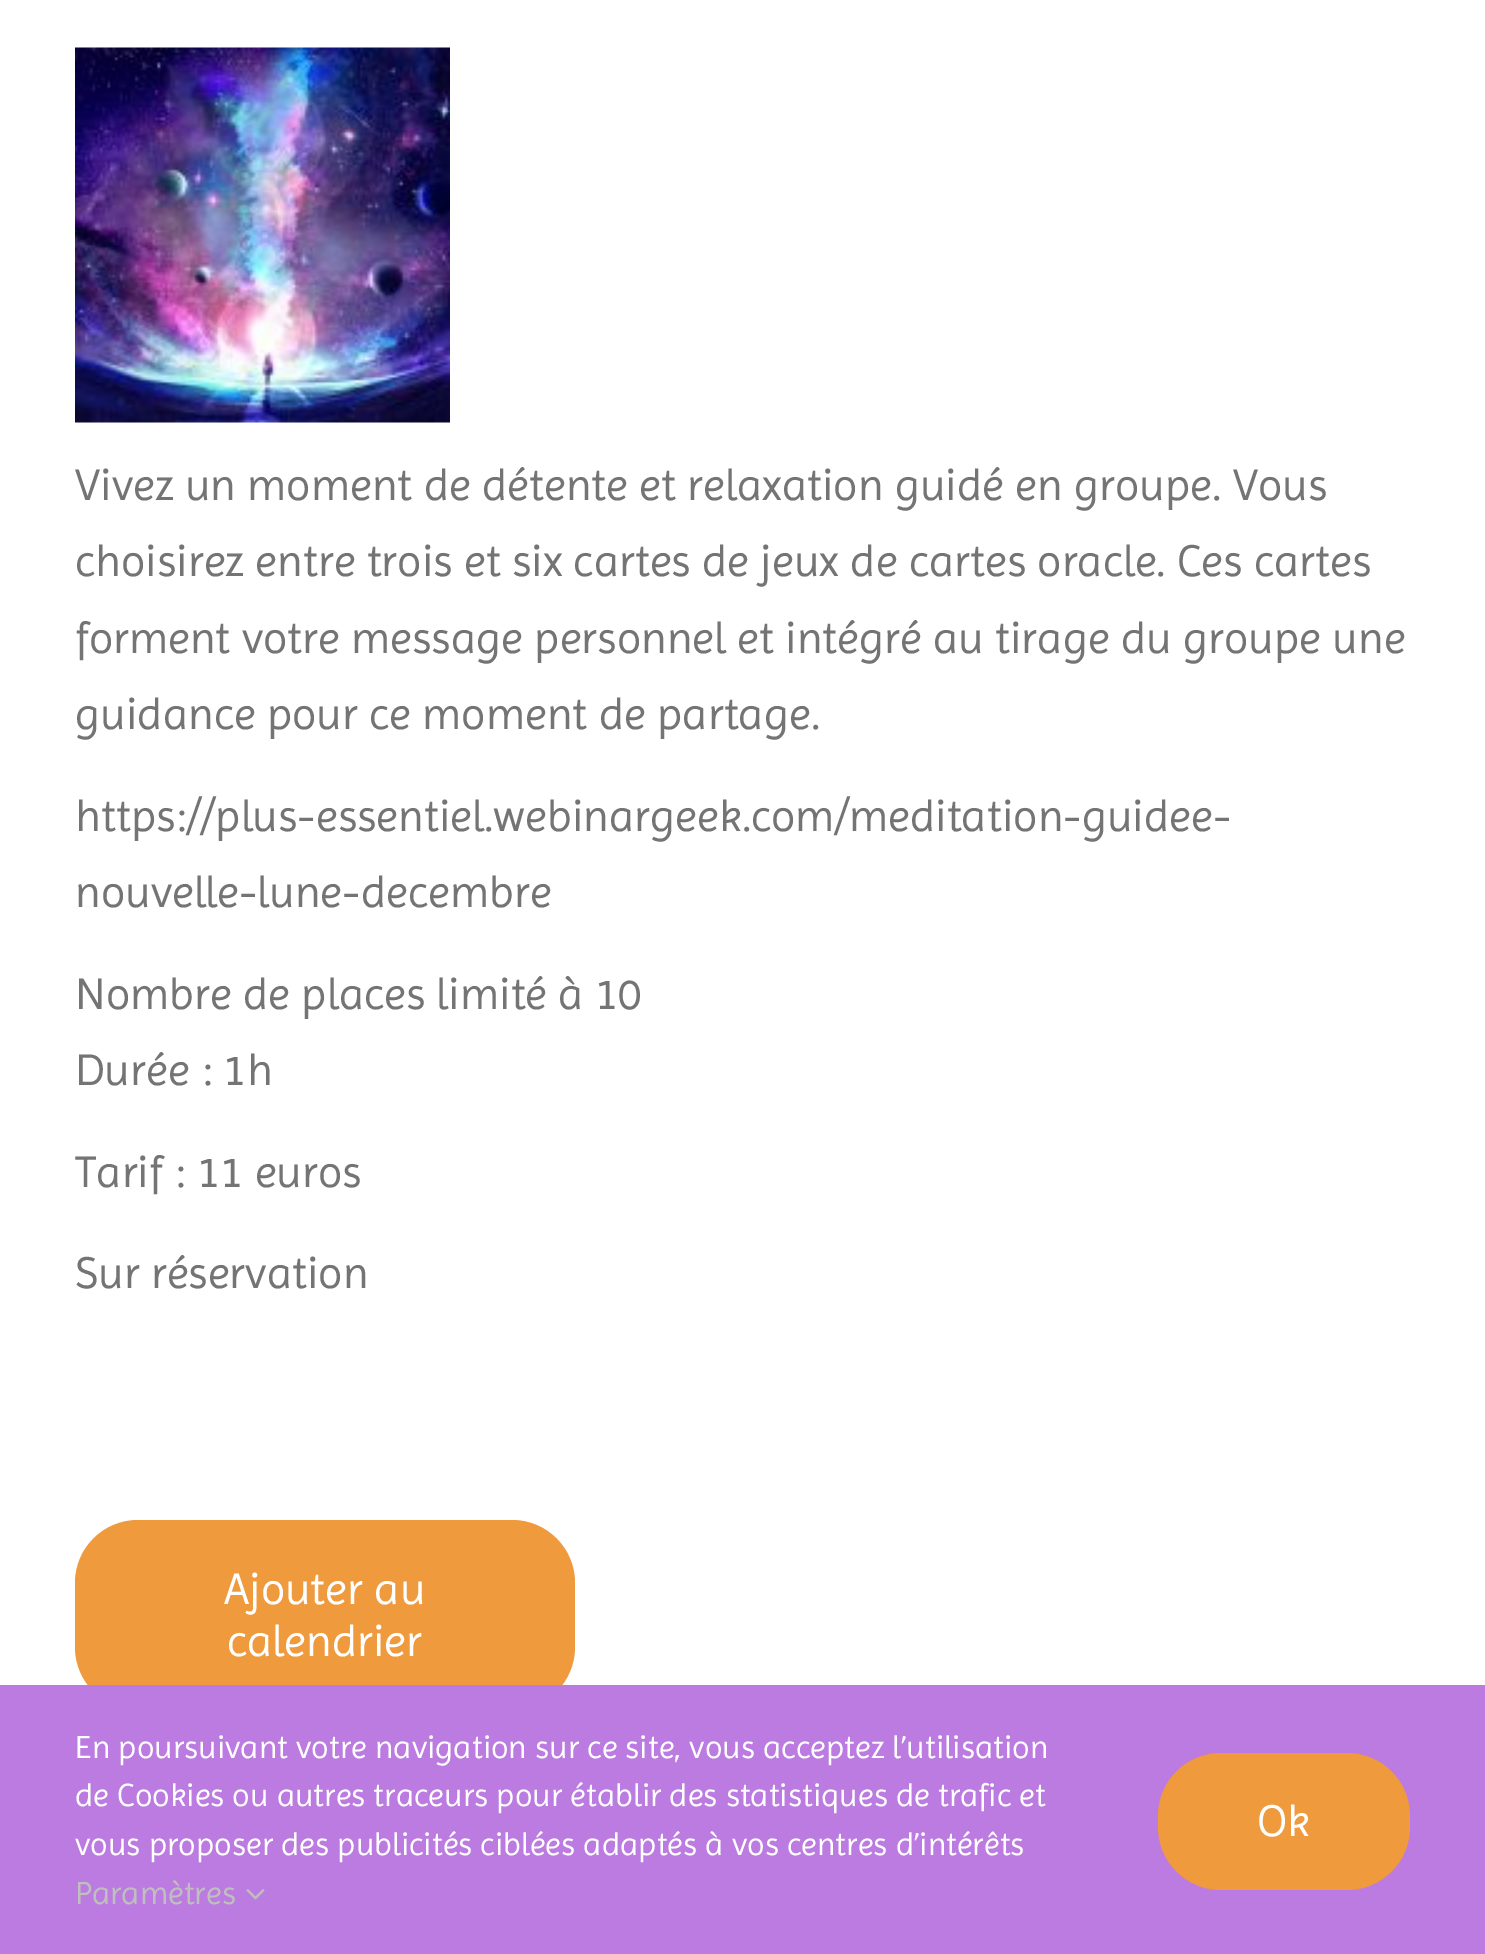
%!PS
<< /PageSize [1485 1954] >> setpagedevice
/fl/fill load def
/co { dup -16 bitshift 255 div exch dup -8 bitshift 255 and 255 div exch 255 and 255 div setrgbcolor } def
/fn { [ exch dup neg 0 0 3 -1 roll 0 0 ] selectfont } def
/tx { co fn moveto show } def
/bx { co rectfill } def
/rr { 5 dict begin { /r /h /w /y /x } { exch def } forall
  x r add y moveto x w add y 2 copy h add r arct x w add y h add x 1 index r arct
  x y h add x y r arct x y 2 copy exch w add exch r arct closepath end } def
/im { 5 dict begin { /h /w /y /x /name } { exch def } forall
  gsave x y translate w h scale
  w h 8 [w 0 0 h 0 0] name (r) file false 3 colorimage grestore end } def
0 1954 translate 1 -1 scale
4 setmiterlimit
0 0 1485 1954 16#FFFFFF bx
(media/1.raw) 75 47 375 376 im
16#F09A3E co
75 1520 500 190 63 rr fl
0 1685 1485 269 16#BB7BE0 bx
(media/2.raw) 246 1889 19 11 im
16#F09A3E co
1158 1753 252 137 63 rr fl
(Vivez un moment de détente et relaxation guidé en groupe. Vous) 75 500 /Imprima-Regular 45 16#747474 tx
(choisirez entre trois et six cartes de jeux de cartes oracle. Ces cartes) 75 576 /Imprima-Regular 45 16#747474 tx
(forment votre message personnel et intégré au tirage du groupe une) 75 653 /Imprima-Regular 45 16#747474 tx
(guidance pour ce moment de partage.) 75 729 /Imprima-Regular 45 16#747474 tx
(https://plus-essentiel.webinargeek.com/meditation-guidee-) 75 831 /Imprima-Regular 45 16#747474 tx
(nouvelle-lune-decembre) 75 907 /Imprima-Regular 45 16#747474 tx
(Nombre de places limité à 10) 75 1009 /Imprima-Regular 45 16#747474 tx
(Durée : 1h) 75 1085 /Imprima-Regular 45 16#747474 tx
(Tarif : 11 euros) 75 1187 /Imprima-Regular 45 16#747474 tx
(Sur réservation) 75 1288 /Imprima-Regular 45 16#747474 tx
(Ajouter au) 224 1604 /Imprima-Regular 45 16#FFFFFF tx
(calendrier) 227 1656 /Imprima-Regular 45 16#FFFFFF tx
(En poursuivant votre navigation sur ce site, vous acceptez l’utilisation) 75 1758 /Imprima-Regular 32.5 16#FFFFFF tx
(de Cookies ou autres traceurs pour établir des statistiques de trafic et) 75 1806 /Imprima-Regular 32.5 16#FFFFFF tx
(vous proposer des publicités ciblées adaptés à vos centres d’intérêts) 75 1855 /Imprima-Regular 32.5 16#FFFFFF tx
(Paramètres) 75 1904 /Imprima-Regular 32.5 16#BFBFBF tx
(Ok) 1257 1836 /Imprima-Regular 45 16#FFFFFF tx
showpage
